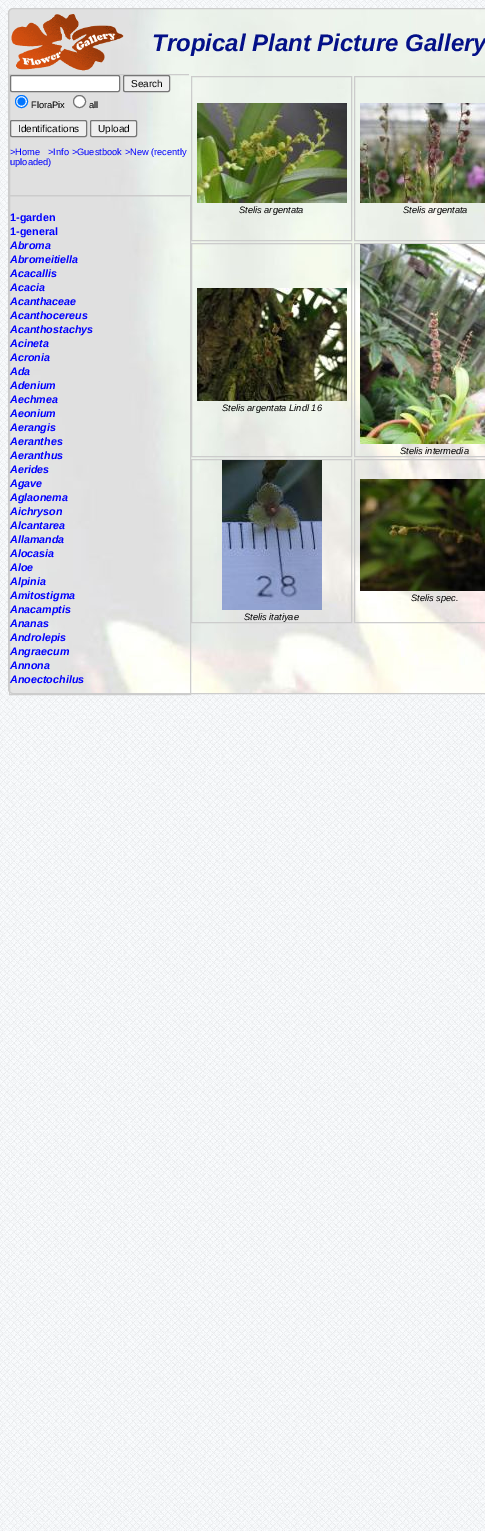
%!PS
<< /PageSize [485 1531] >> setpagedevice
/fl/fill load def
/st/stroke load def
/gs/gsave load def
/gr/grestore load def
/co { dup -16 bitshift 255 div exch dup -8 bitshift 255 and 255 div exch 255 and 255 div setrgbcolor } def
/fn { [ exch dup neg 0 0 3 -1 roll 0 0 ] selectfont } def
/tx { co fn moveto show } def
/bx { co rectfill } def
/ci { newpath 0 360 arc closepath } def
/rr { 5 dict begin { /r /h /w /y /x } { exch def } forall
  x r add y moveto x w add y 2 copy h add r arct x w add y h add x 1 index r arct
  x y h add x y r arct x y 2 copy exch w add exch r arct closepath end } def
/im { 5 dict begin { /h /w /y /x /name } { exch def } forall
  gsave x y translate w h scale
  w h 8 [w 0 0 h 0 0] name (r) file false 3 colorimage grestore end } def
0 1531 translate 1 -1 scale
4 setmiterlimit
0 0 485 1531 16#FFFFFF bx
(media/1.raw) 0 0 485 1531 im
(media/2.raw) 8 8 477 686 im
16#CCCCCC co
8.5 8.5 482 685 4.5 rr st
(media/3.raw) 11 14 113 57 im
gs
9 74 180 619 rectclip
9.5 74.5 181 121 rectstroke
gr
16#FFFFFF co
10.5 75.5 109 16 1.5 rr gs fl gr
16#767676 co
st
16#EFEFEF co
123.5 75.5 46 16 1.5 rr gs fl gr
16#767676 co
st
16#FFFFFF co
21.5 101.5 6 ci gs fl gr
16#0075FF co
st
21.5 101.5 4 ci fl
16#FFFFFF co
79.5 101.5 6 ci gs fl gr
16#767676 co
st
16#EFEFEF co
10.5 120.5 76 16 1.5 rr gs fl gr
16#767676 co
st
16#EFEFEF co
90.5 120.5 46 16 1.5 rr gs fl gr
16#767676 co
st
16#CCCCCC co
9.5 195.5 181 499 rectstroke
191.5 76.5 160 164 rectstroke
(media/4.raw) 197 103 150 100 im
354.5 76.5 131 164 rectstroke
(media/5.raw) 360 103 125 100 im
191.5 243.5 160 213 rectstroke
(media/6.raw) 197 288 150 113 im
354.5 243.5 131 213 rectstroke
(media/7.raw) 360 244 125 200 im
354.5 459.5 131 163 rectstroke
(media/8.raw) 360 479 125 112 im
191.5 459.5 160 163 rectstroke
(media/9.raw) 222 460 100 150 im
(Tropical Plant Picture Gallery) 152 51 /LiberationSans-BoldItalic 24 16#041188 tx
(Search) 131 87 /LiberationSans-Regular 10 16#000000 tx
(FloraPix) 31 108 /LiberationSans-Regular 9.3 16#000000 tx
(all) 89 108 /LiberationSans-Regular 9.3 16#000000 tx
(Identifications) 18 132 /LiberationSans-Regular 10 16#000000 tx
(Upload) 98 132 /LiberationSans-Regular 10 16#000000 tx
(>Home) 10 155 /LiberationSans-Regular 9.3 16#0000FF tx
(>Info >Guestbook >New \(recently) 48 155 /LiberationSans-Regular 9.3 16#0000FF tx
(uploaded\)) 10 165 /LiberationSans-Regular 9.3 16#0000FF tx
(1-garden) 10 221 /LiberationSans-Bold 10.75 16#0000FF tx
(1-general) 10 235 /LiberationSans-Bold 10.75 16#0000FF tx
(Abroma) 10 249 /LiberationSans-BoldItalic 10.75 16#0000FF tx
(Abromeitiella) 10 263 /LiberationSans-BoldItalic 10.75 16#0000FF tx
(Acacallis) 10 277 /LiberationSans-BoldItalic 10.75 16#0000FF tx
(Acacia) 10 291 /LiberationSans-BoldItalic 10.75 16#0000FF tx
(Acanthaceae) 10 305 /LiberationSans-BoldItalic 10.75 16#0000FF tx
(Acanthocereus) 10 319 /LiberationSans-BoldItalic 10.75 16#0000FF tx
(Acanthostachys) 10 333 /LiberationSans-BoldItalic 10.75 16#0000FF tx
(Acineta) 10 347 /LiberationSans-BoldItalic 10.75 16#0000FF tx
(Acronia) 10 361 /LiberationSans-BoldItalic 10.75 16#0000FF tx
(Ada) 10 375 /LiberationSans-BoldItalic 10.75 16#0000FF tx
(Adenium) 10 389 /LiberationSans-BoldItalic 10.75 16#0000FF tx
(Aechmea) 10 403 /LiberationSans-BoldItalic 10.75 16#0000FF tx
(Aeonium) 10 417 /LiberationSans-BoldItalic 10.75 16#0000FF tx
(Aerangis) 10 431 /LiberationSans-BoldItalic 10.75 16#0000FF tx
(Aeranthes) 10 445 /LiberationSans-BoldItalic 10.75 16#0000FF tx
(Aeranthus) 10 459 /LiberationSans-BoldItalic 10.75 16#0000FF tx
(Aerides) 10 473 /LiberationSans-BoldItalic 10.75 16#0000FF tx
(Agave) 10 487 /LiberationSans-BoldItalic 10.75 16#0000FF tx
(Aglaonema) 10 501 /LiberationSans-BoldItalic 10.75 16#0000FF tx
(Aichryson) 10 515 /LiberationSans-BoldItalic 10.75 16#0000FF tx
(Alcantarea) 10 529 /LiberationSans-BoldItalic 10.75 16#0000FF tx
(Allamanda) 10 543 /LiberationSans-BoldItalic 10.75 16#0000FF tx
(Alocasia) 10 557 /LiberationSans-BoldItalic 10.75 16#0000FF tx
(Aloe) 10 571 /LiberationSans-BoldItalic 10.75 16#0000FF tx
(Alpinia) 10 585 /LiberationSans-BoldItalic 10.75 16#0000FF tx
(Amitostigma) 10 599 /LiberationSans-BoldItalic 10.75 16#0000FF tx
(Anacamptis) 10 613 /LiberationSans-BoldItalic 10.75 16#0000FF tx
(Ananas) 10 627 /LiberationSans-BoldItalic 10.75 16#0000FF tx
(Androlepis) 10 641 /LiberationSans-BoldItalic 10.75 16#0000FF tx
(Angraecum) 10 655 /LiberationSans-BoldItalic 10.75 16#0000FF tx
(Annona) 10 669 /LiberationSans-BoldItalic 10.75 16#0000FF tx
(Anoectochilus) 10 683 /LiberationSans-BoldItalic 10.75 16#0000FF tx
(Stelis argentata) 239 213 /LiberationSans-Italic 9.3 16#000000 tx
(Stelis argentata) 403 213 /LiberationSans-Italic 9.3 16#000000 tx
(Stelis argentata Lindl 16) 222 411 /LiberationSans-Italic 9.3 16#000000 tx
(Stelis intermedia) 400 454 /LiberationSans-Italic 9.3 16#000000 tx
(Stelis spec.) 411 601 /LiberationSans-Italic 9.3 16#000000 tx
(Stelis itatiyae) 244 620 /LiberationSans-Italic 9.3 16#000000 tx
showpage
